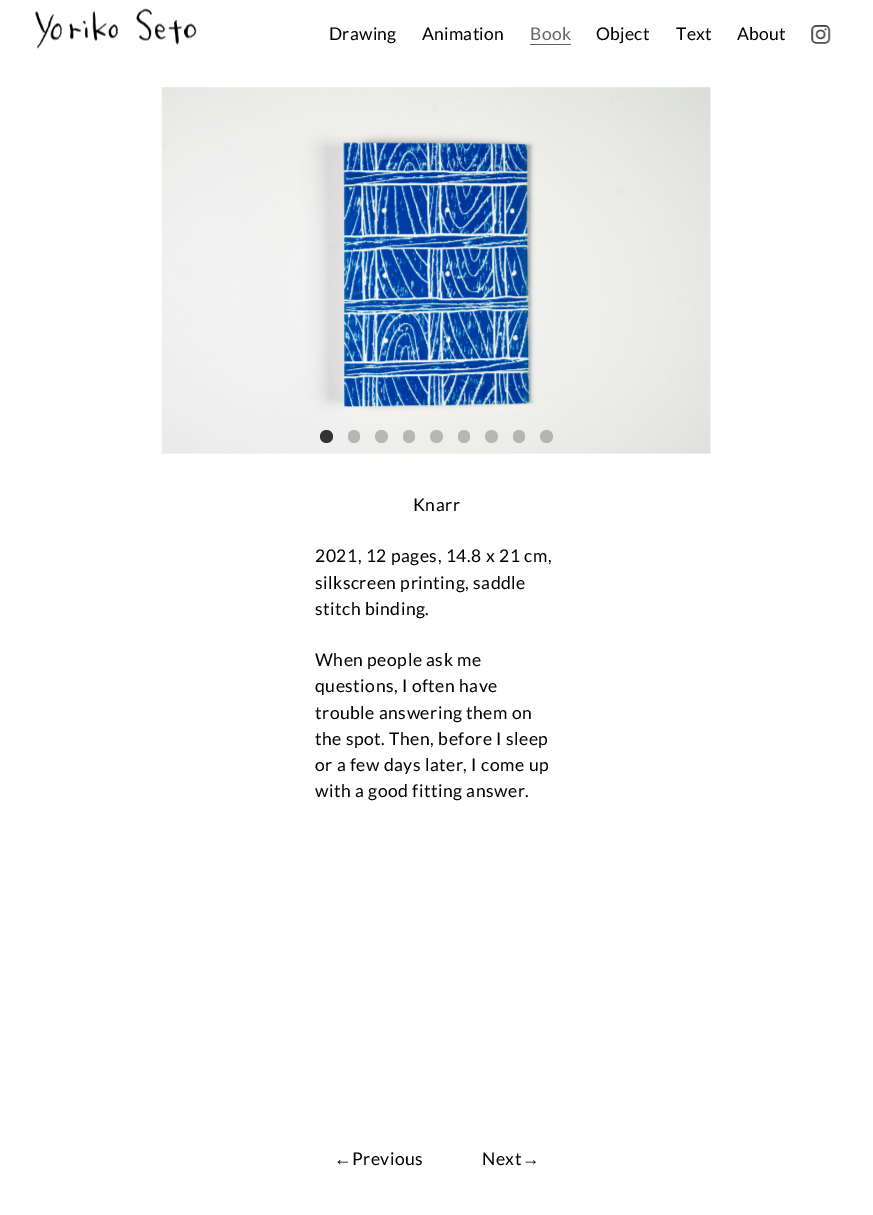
%!PS
<< /PageSize [873 1215] /PageUsesTransparency true >> setpagedevice
/mt/moveto load def
/fl/fill load def
/co { dup -16 bitshift 255 div exch dup -8 bitshift 255 and 255 div exch 255 and 255 div setrgbcolor } def
/fn { [ exch dup neg 0 0 3 -1 roll 0 0 ] selectfont } def
/bx { co rectfill } def
/al { dup .setfillconstantalpha .setstrokeconstantalpha } def
/ci { newpath 0 360 arc closepath } def
/rr { 5 dict begin { /r /h /w /y /x } { exch def } forall
  x r add y moveto x w add y 2 copy h add r arct x w add y h add x 1 index r arct
  x y h add x y r arct x y 2 copy exch w add exch r arct closepath end } def
/im { 5 dict begin { /h /w /y /x /name } { exch def } forall
  gsave x y translate w h scale
  w h 8 [w 0 0 h 0 0] name (r) file false 3 colorimage grestore end } def
0 .pushpdf14devicefilter
0 1215 translate 1 -1 scale
4 setmiterlimit
0 0 873 1215 16#FFFFFF bx
(media/1.raw) 35 8 162 41 im
530 44 41 1 16#666666 bx
(media/2.raw) 811 25 20 19 im
(media/3.raw) 161 87 550 367 im
16#333333 co
326.5 436.5 6.5 ci fl
0.3 al
348 430 12 13 6 rr fl
1 al
16#B7B7B5 co
381.5 436.5 6.5 ci fl
16#B6B7B5 co
403 430 12 13 6 rr fl
436.5 436.5 6.5 ci fl
16#B6B6B4 co
458 430 12 13 6 rr fl
491.5 436.5 6.5 ci fl
16#B5B5B3 co
513 430 12 13 6 rr fl
16#B4B4B3 co
546.5 436.5 6.5 ci fl
/Lato-Regular 17.5 fn
16#000000 co
329 40 mt .25 0 (Drawing) ashow
422 40 mt .25 0 (Animation) ashow
16#666666 co
530 40 mt .25 0 (Book) ashow
16#000000 co
596 40 mt .25 0 (Object) ashow
676 40 mt .25 0 (Text) ashow
737 40 mt .25 0 (About) ashow
413 511 mt .5 0 (Knarr) ashow
315 562 mt .5 0 (2021, 12 pages, 14.8 x 21 cm,) ashow
315 589 mt .5 0 (silkscreen printing, saddle) ashow
315 615 mt .5 0 (stitch binding.) ashow
315 666 mt .5 0 (When people ask me) ashow
315 692 mt .5 0 (questions, I often have) ashow
315 719 mt .5 0 (trouble answering them on) ashow
315 745 mt .5 0 (the spot. Then, before I sleep) ashow
315 771 mt .5 0 (or a few days later, I come up) ashow
315 797 mt .5 0 (with a good fitting answer.) ashow
/LiberationSerif-Regular 17.5 fn
334 1165 mt .5 0 (←) ashow
/Lato-Regular 17.5 fn
352 1165 mt .5 0 (Previous) ashow
482 1165 mt .5 0 (Next) ashow
/LiberationSerif-Regular 17.5 fn
522 1165 mt .5 0 (→) ashow
.poppdf14devicefilter showpage
